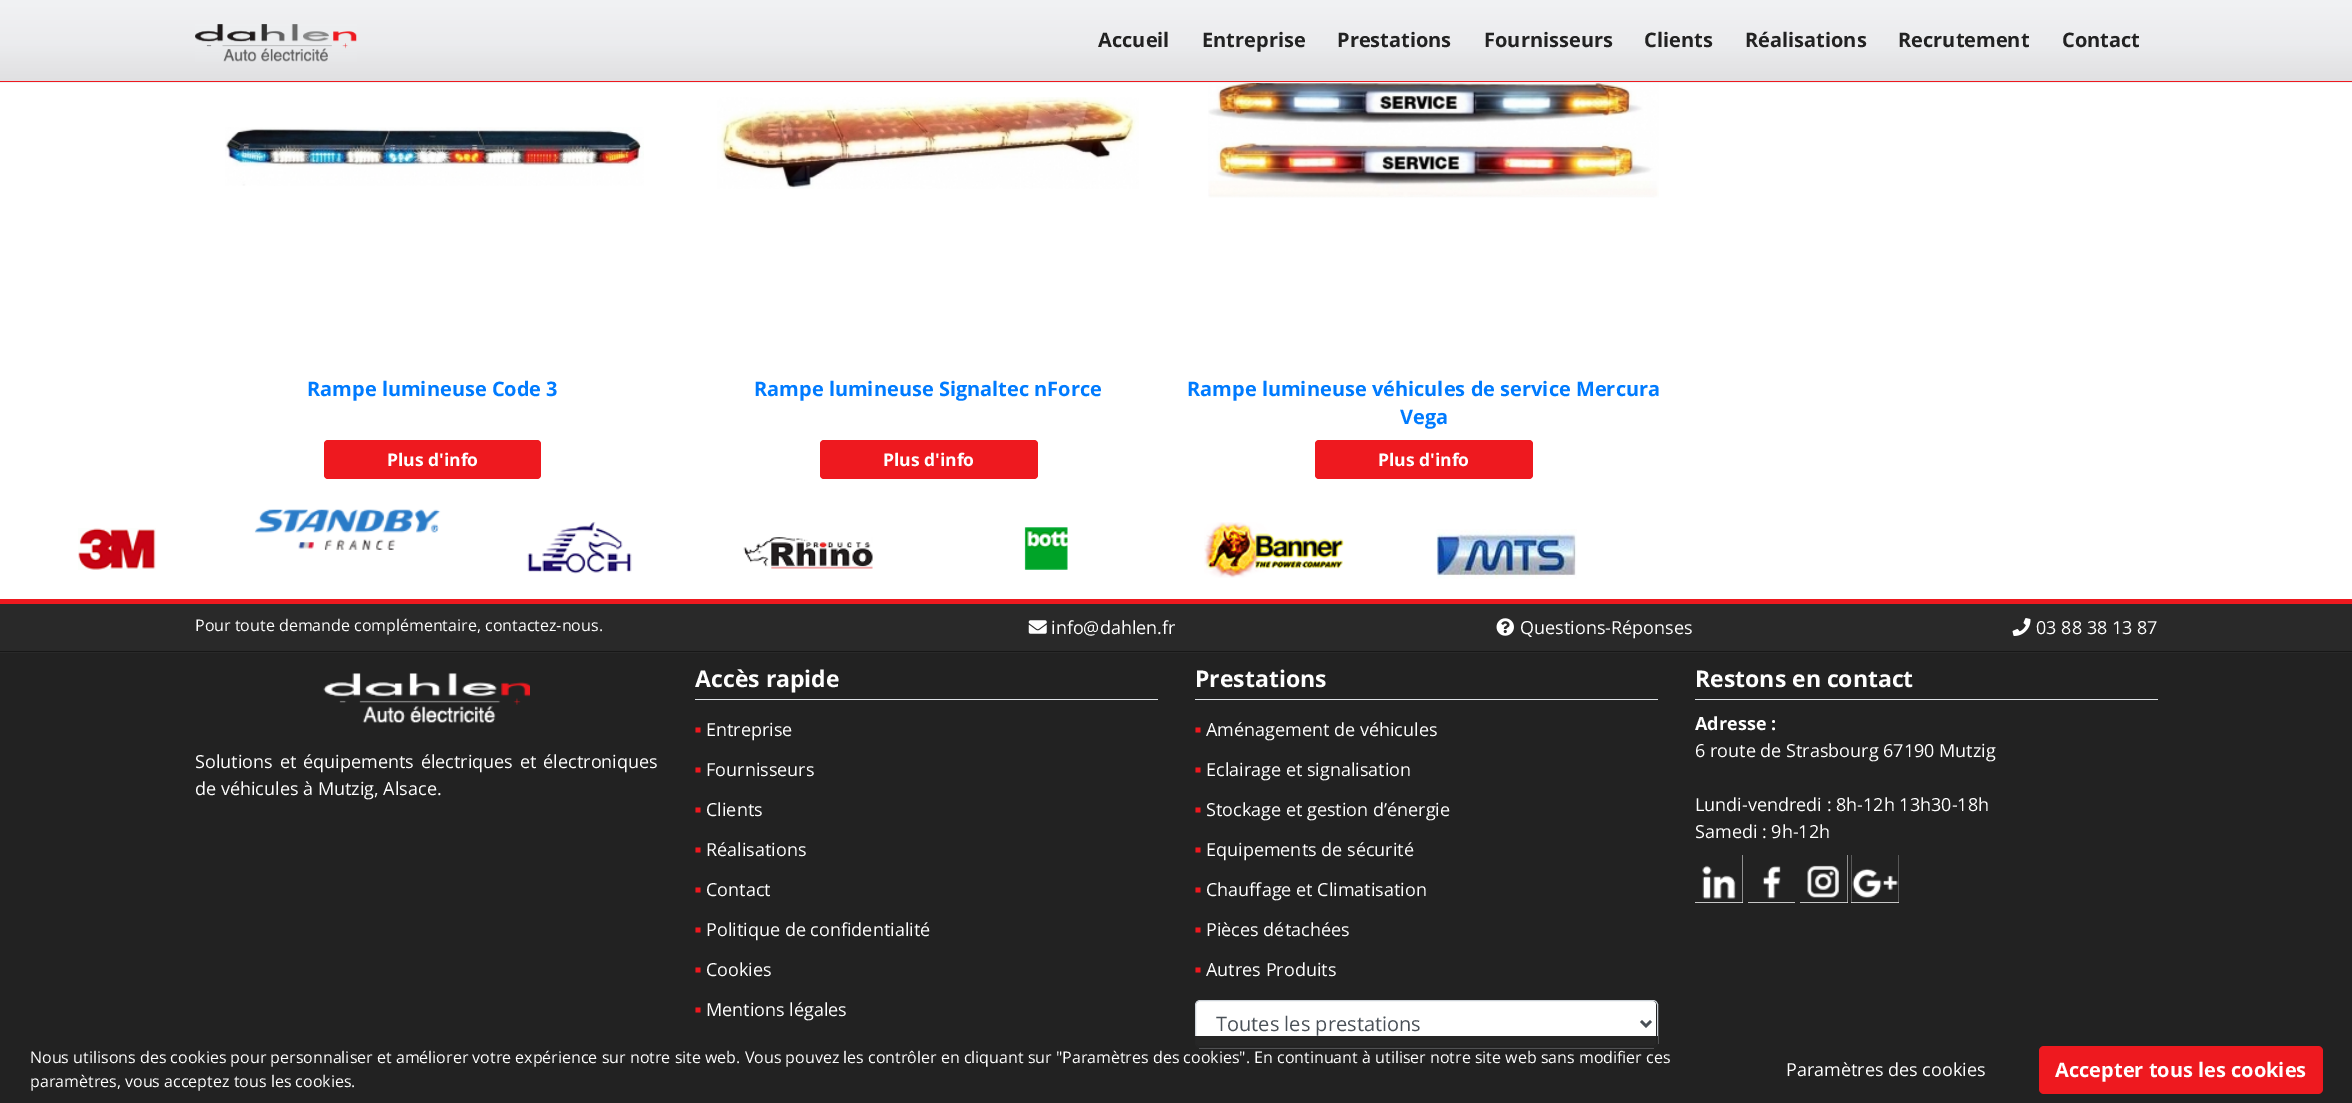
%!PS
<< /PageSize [2352 1103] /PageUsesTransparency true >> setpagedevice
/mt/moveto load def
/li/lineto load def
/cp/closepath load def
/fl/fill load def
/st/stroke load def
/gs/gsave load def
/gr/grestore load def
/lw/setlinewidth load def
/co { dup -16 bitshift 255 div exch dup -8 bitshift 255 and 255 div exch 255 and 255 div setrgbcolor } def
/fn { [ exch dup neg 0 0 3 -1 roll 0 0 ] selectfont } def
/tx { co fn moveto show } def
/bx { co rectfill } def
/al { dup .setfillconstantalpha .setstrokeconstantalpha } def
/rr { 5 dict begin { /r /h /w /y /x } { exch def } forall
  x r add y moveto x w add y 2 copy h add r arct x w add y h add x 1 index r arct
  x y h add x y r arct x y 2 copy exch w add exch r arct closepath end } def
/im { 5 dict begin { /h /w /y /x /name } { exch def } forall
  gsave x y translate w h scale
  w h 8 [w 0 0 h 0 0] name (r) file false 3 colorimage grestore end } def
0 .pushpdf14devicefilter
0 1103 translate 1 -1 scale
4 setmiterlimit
0 0 2352 1103 16#FFFFFF bx
gs 0 0 mt 2352 0 li 2352 81 li 0 81 li cp clip newpath
<< /ShadingType 2 /ColorSpace /DeviceRGB /Coords [1176 0 1176 81] /Extend [true true] /Function << /FunctionType 3 /Domain [0 1] /Functions [<< /FunctionType 2 /Domain [0 1] /C0 [.945 .949 .957] /C1 [.922 .925 .933] /N 1 >> << /FunctionType 2 /Domain [0 1] /C0 [.922 .925 .933] /C1 [.878 .878 .886] /N 1 >>] /Bounds [.54] /Encode [0 1 0 1] >> >> shfill gr
gs 0 82 mt 2352 82 li 2352 83 li 0 83 li cp clip newpath
<< /ShadingType 2 /ColorSpace /DeviceRGB /Coords [1176 81 1176 163] /Extend [true true] /Function << /FunctionType 3 /Domain [0 1] /Functions [<< /FunctionType 2 /Domain [0 1] /C0 [.945 .949 .957] /C1 [.922 .925 .933] /N 1 >> << /FunctionType 2 /Domain [0 1] /C0 [.922 .925 .933] /C1 [.878 .878 .886] /N 1 >>] /Bounds [.54] /Encode [0 1 0 1] >> >> shfill gr
0 81 2352 1 16#EE191F bx
(media/1.raw) 195 24 162 38 im
(media/2.raw) 225 127 419 59 im
324 440 217 39 4 rr fl
(media/3.raw) 717 97 422 92 im
820 440 218 39 4 rr fl
(media/4.raw) 1208 83 451 115 im
1315 440 218 39 4 rr fl
(media/5.raw) 78 528 78 42 im
(media/6.raw) 254 509 187 41 im
(media/7.raw) 527 521 105 53 im
(media/8.raw) 743 537 130 32 im
(media/9.raw) 1024 527 44 43 im
(media/10.raw) 1204 522 140 56 im
(media/11.raw) 1436 529 141 50 im
0 599 2352 5 16#EE191F bx
0 604 2352 49 16#292929 bx
0 651 2352 1 16#171717 bx
(media/12.raw) 1028 620 19 14 im
(media/13.raw) 1496 618 18 18 im
(media/14.raw) 2012 618 19 18 im
0 653 2352 450 16#222222 bx
(media/15.raw) 323 673 207 50 im
695 699 463 1 16#DEE2E6 bx
1195 699 463 1 16#DEE2E6 bx
16#FFFFFF co
1196 1001 460 45 4 rr fl
16#CED4DA co
1195.5 1000.5 462 47 4.5 rr st
16#495057 co
2.5 lw
1641 1021 mt 1646 1026 li 1651 1021 li st
1695 699 463 1 16#DEE2E6 bx
1695 855 48 48 16#FFFFFF bx
(media/16.raw) 1695 855 48 48 im
1748 865 47 38 16#FFFFFF bx
(media/17.raw) 1748 855 47 48 im
1800 855 48 48 16#FFFFFF bx
(media/18.raw) 1800 855 48 48 im
1851 855 48 48 16#FFFFFF bx
(media/19.raw) 1851 855 48 48 im
0.98 al
1195 1036 463 12 16#222222 bx
1 al
16#EE191F co
2039 1046 284 48 5 rr fl
(Accueil) 1098 47 /OpenSans-Bold 20 16#222222 tx
(Entreprise) 1202 47 /OpenSans-Bold 20 16#222222 tx
(Prestations) 1337 47 /OpenSans-Bold 20 16#222222 tx
(Fournisseurs) 1484 47 /OpenSans-Bold 20 16#222222 tx
(Clients) 1644 47 /OpenSans-Bold 20 16#222222 tx
(Réalisations) 1745 47 /OpenSans-Bold 20 16#222222 tx
(Recrutement) 1898 47 /OpenSans-Bold 20 16#222222 tx
(Contact) 2062 47 /OpenSans-Bold 20 16#222222 tx
(Rampe lumineuse Code 3) 307 396 /OpenSans-Bold 20 16#007BFF tx
(Plus d'info) 387 466 /OpenSans-Bold 17.5 16#FFFFFF tx
(Rampe lumineuse Signaltec nForce) 754 396 /OpenSans-Bold 20 16#007BFF tx
(Plus d'info) 883 466 /OpenSans-Bold 17.5 16#FFFFFF tx
(Rampe lumineuse véhicules de service Mercura) 1187 396 /OpenSans-Bold 20 16#007BFF tx
(Vega) 1400 424 /OpenSans-Bold 20 16#007BFF tx
(Plus d'info) 1378 466 /OpenSans-Bold 17.5 16#FFFFFF tx
(Pour toute demande complémentaire, contactez-nous.) 195 631 /OpenSans-Regular 16 16#FFFFFF tx
(info@dahlen.fr) 1051 634 /OpenSans-Regular 18 16#FFFFFF tx
(Questions-Réponses) 1520 634 /OpenSans-Regular 18 16#FFFFFF tx
(03 88 38 13 87) 2036 634 /OpenSans-Regular 18 16#FFFFFF tx
195 768 mt 2.25 0 32 (Solutions et équipements électriques et électroniques) widthshow
(de véhicules à Mutzig, Alsace.) 195 795 /OpenSans-Regular 18 16#FFFFFF tx
(Accès rapide) 695 687 /OpenSans-Bold 23 16#FFFFFF tx
(■) 695 733 /LiberationSerif-Regular 10 16#EE191F tx
(Entreprise) 706 736 /OpenSans-Regular 18 16#FFFFFF tx
(■) 695 773 /LiberationSerif-Regular 10 16#EE191F tx
(Fournisseurs) 706 776 /OpenSans-Regular 18 16#FFFFFF tx
(■) 695 813 /LiberationSerif-Regular 10 16#EE191F tx
(Clients) 706 816 /OpenSans-Regular 18 16#FFFFFF tx
(■) 695 853 /LiberationSerif-Regular 10 16#EE191F tx
(Réalisations) 706 856 /OpenSans-Regular 18 16#FFFFFF tx
(■) 695 893 /LiberationSerif-Regular 10 16#EE191F tx
(Contact) 706 896 /OpenSans-Regular 18 16#FFFFFF tx
(■) 695 933 /LiberationSerif-Regular 10 16#EE191F tx
(Politique de confidentialité) 706 936 /OpenSans-Regular 18 16#FFFFFF tx
(■) 695 973 /LiberationSerif-Regular 10 16#EE191F tx
(Cookies) 706 976 /OpenSans-Regular 18 16#FFFFFF tx
(■) 695 1013 /LiberationSerif-Regular 10 16#EE191F tx
(Mentions légales) 706 1016 /OpenSans-Regular 18 16#FFFFFF tx
(Prestations) 1195 687 /OpenSans-Bold 23 16#FFFFFF tx
(■) 1195 733 /LiberationSerif-Regular 10 16#EE191F tx
(Aménagement de véhicules) 1206 736 /OpenSans-Regular 18 16#FFFFFF tx
(■) 1195 773 /LiberationSerif-Regular 10 16#EE191F tx
(Eclairage et signalisation) 1206 776 /OpenSans-Regular 18 16#FFFFFF tx
(■) 1195 813 /LiberationSerif-Regular 10 16#EE191F tx
(Stockage et gestion d’énergie) 1206 816 /OpenSans-Regular 18 16#FFFFFF tx
(■) 1195 853 /LiberationSerif-Regular 10 16#EE191F tx
(Equipements de sécurité) 1206 856 /OpenSans-Regular 18 16#FFFFFF tx
(■) 1195 893 /LiberationSerif-Regular 10 16#EE191F tx
(Chauffage et Climatisation) 1206 896 /OpenSans-Regular 18 16#FFFFFF tx
(■) 1195 933 /LiberationSerif-Regular 10 16#EE191F tx
(Pièces détachées) 1206 936 /OpenSans-Regular 18 16#FFFFFF tx
(■) 1195 973 /LiberationSerif-Regular 10 16#EE191F tx
(Autres Produits) 1206 976 /OpenSans-Regular 18 16#FFFFFF tx
(Toutes les prestations) 1216 1031 /OpenSans-Regular 20 16#495057 tx
(Restons en contact) 1695 687 /OpenSans-Bold 23 16#FFFFFF tx
(Adresse :) 1695 730 /OpenSans-Bold 18 16#FFFFFF tx
(6 route de Strasbourg 67190 Mutzig) 1695 757 /OpenSans-Regular 18 16#FFFFFF tx
(Lundi-vendredi : 8h-12h 13h30-18h) 1695 811 /OpenSans-Regular 18 16#FFFFFF tx
(Samedi : 9h-12h) 1695 838 /OpenSans-Regular 18 16#FFFFFF tx
(Nous utilisons des cookies pour personnaliser et améliorer votre expérience sur notre site web. Vous pouvez les contrôler en cliquant sur "Paramètres des cookies". En continuant à utiliser notre site web sans modifier ces) 30 1063 /OpenSans-Regular 16 16#FFFFFF tx
(paramètres, vous acceptez tous les cookies.) 30 1087 /OpenSans-Regular 16 16#FFFFFF tx
(Paramètres des cookies) 1786 1076 /OpenSans-Regular 18 16#FFFFFF tx
(Accepter tous les cookies) 2055 1077 /OpenSans-Bold 20 16#FFFFFF tx
.poppdf14devicefilter showpage
